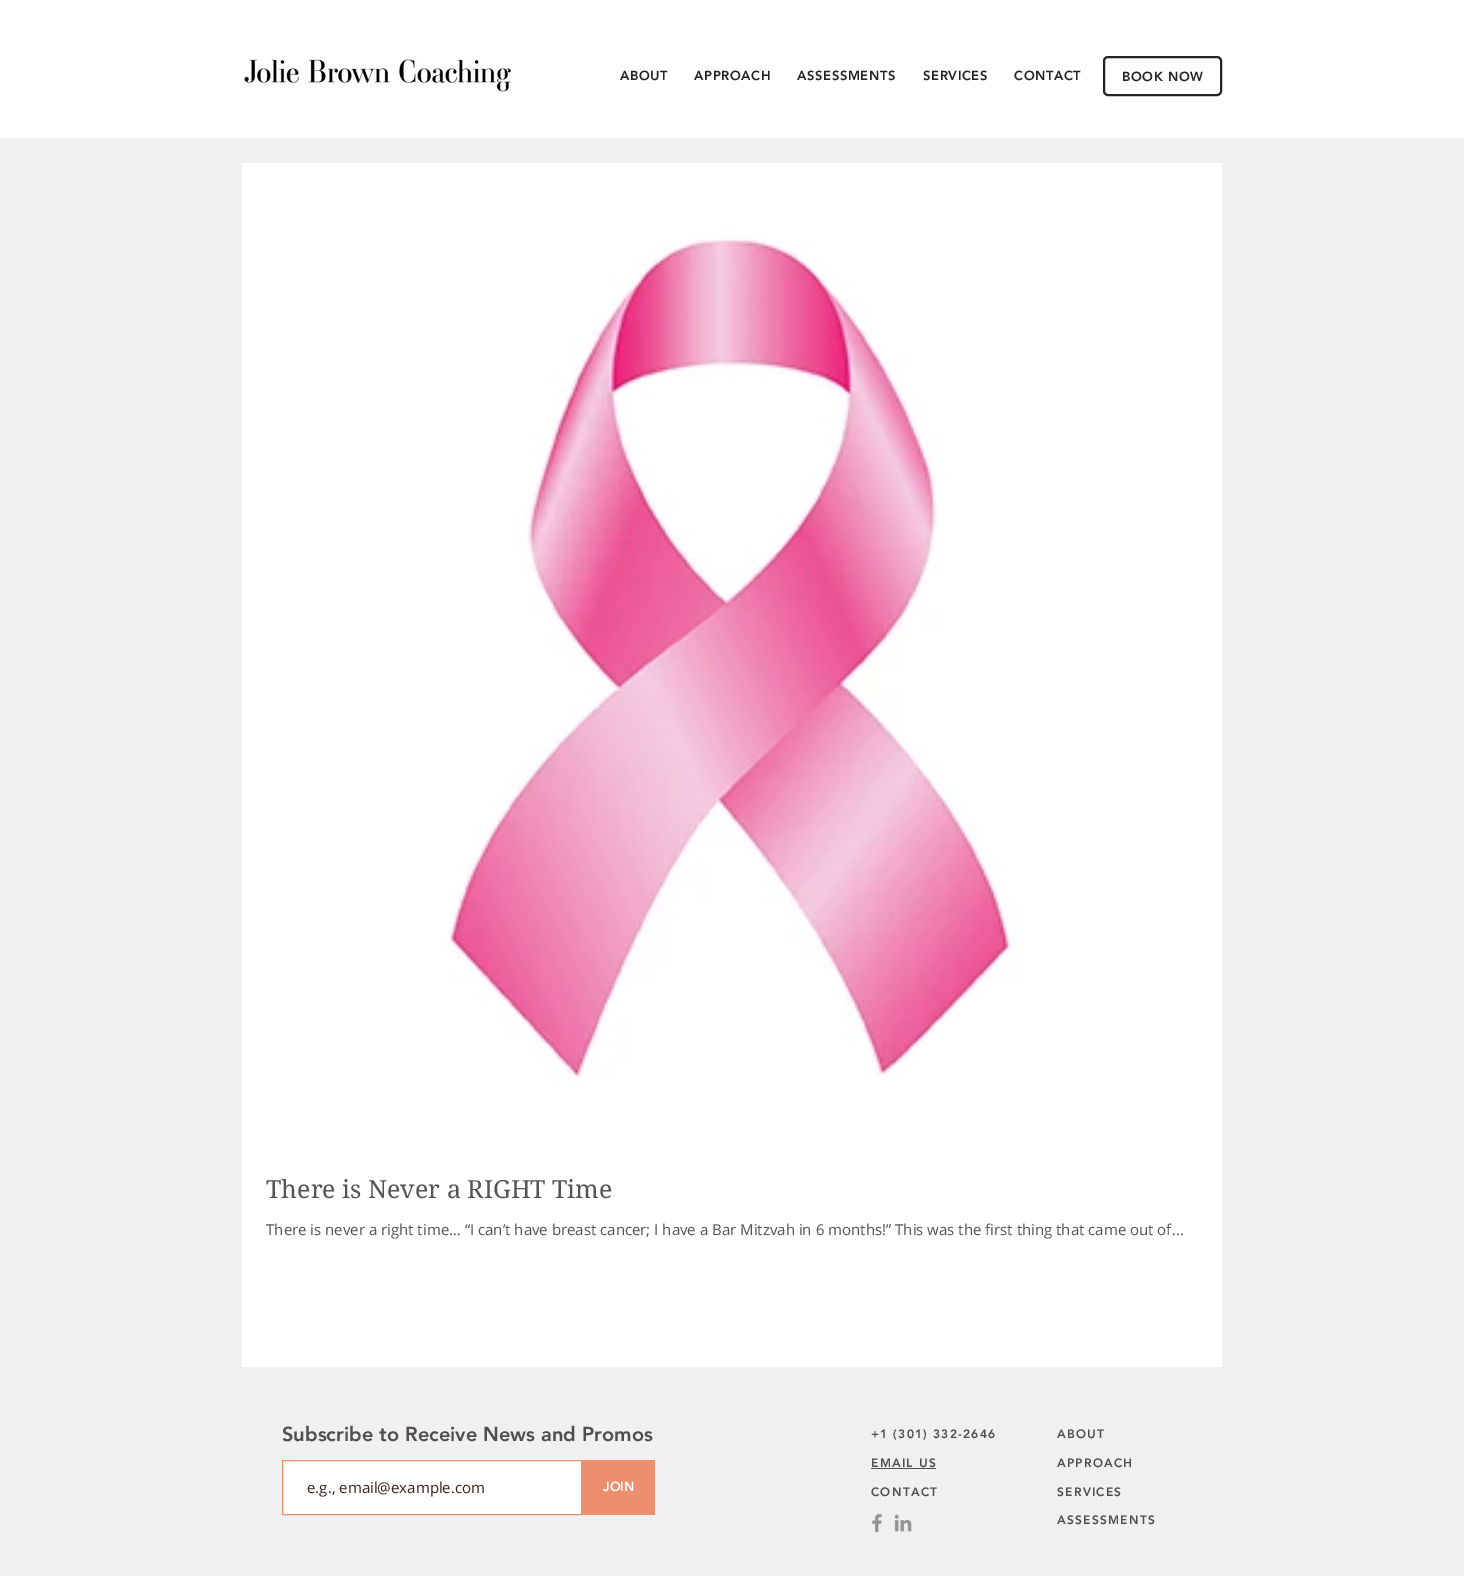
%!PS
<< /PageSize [1464 1576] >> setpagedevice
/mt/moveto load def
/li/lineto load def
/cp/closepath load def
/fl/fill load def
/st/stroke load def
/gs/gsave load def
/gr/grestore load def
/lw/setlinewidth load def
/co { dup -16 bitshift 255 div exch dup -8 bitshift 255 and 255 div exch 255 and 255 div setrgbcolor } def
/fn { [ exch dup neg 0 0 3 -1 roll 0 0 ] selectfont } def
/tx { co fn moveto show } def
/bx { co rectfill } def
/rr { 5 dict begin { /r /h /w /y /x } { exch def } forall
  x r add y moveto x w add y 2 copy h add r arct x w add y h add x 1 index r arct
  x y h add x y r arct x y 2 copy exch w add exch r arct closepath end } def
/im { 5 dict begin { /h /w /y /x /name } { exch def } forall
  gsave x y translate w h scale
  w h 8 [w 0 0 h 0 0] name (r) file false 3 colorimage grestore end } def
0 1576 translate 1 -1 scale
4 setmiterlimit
0 0 1464 1576 16#F0F0F0 bx
0 0 1464 138 16#FFFFFF bx
(media/1.raw) 244 59 267 33 im
16#262320 co
2 lw
1104 57 117 38 4 rr st
242 163 980 1204 16#FFFFFF bx
(media/2.raw) 319 163 848 980 im
282.5 1460.5 mt 581.5 1460.5 li 581.5 1514.5 li 282.5 1514.5 li cp gs fl gr
16#EC8F6E co
1 lw
st
582 1460 73 55 16#EC8F6E bx
871 1468 65 1 16#514E4B bx
(media/3.raw) 872 1514 10 19 im
(media/4.raw) 894 1514 18 18 im
/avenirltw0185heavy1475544-Black 13 fn
16#262320 co
620 80 mt .6 0 (ABOUT) ashow
694 80 mt .6 0 (APPROACH) ashow
797 80 mt .6 0 (ASSESSMENTS) ashow
923 80 mt .6 0 (SERVICES) ashow
1014 80 mt .6 0 (CONTACT) ashow
1122 81 mt .6 0 (BOOK NOW) ashow
(There is Never a RIGHT Time) 266 1198 /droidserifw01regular-Regular 25 16#555353 tx
(There is never a right time… “I can’t have breast cancer; I have a Bar Mitzvah in 6 months!” This was the first thing that came out of...) 266 1235 /OpenSans-Regular 15 16#555353 tx
(Subscribe to Receive News and Promos) 282 1441 /avenirltw0185heavy1475544-Black 20 16#514E4B tx
(e.g., email@example.com) 307 1493 /OpenSans-Regular 15 16#3B241B tx
(JOIN) 603 1491 /avenirltw0185heavy1475544-Black 13 16#FFFFFF tx
/avenirltw0185heavy1475544-Black 12 fn
16#514E4B co
871 1438 mt 1.25 0 (+1 \(301\) 332-2646) ashow
871 1467 mt 1.25 0 (EMAIL US) ashow
871 1496 mt 1.25 0 (CONTACT) ashow
1057 1438 mt 1.25 0 (ABOUT) ashow
1057 1467 mt 1.25 0 (APPROACH) ashow
1057 1496 mt 1.25 0 (SERVICES) ashow
1057 1524 mt 1.25 0 (ASSESSMENTS) ashow
showpage
